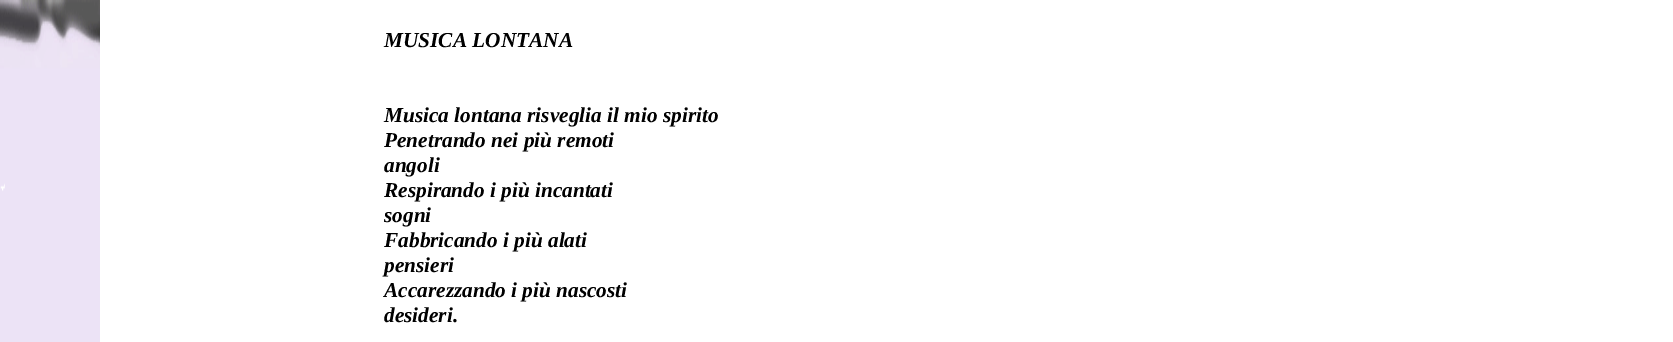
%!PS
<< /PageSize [1673 342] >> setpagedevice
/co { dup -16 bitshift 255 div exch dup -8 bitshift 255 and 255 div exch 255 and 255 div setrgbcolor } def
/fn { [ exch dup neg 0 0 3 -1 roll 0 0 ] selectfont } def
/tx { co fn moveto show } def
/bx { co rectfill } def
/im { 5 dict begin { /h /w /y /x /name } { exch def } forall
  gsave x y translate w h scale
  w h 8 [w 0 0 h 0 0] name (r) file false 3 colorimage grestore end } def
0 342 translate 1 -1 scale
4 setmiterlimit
0 0 1673 342 16#FFFFFF bx
(media/1.raw) 0 0 100 342 im
(MUSICA LONTANA) 384 47 /LiberationSerif-BoldItalic 21.3 16#000000 tx
(Musica lontana risveglia il mio spirito) 384 122 /LiberationSerif-BoldItalic 21.3 16#000000 tx
(Penetrando nei più remoti) 384 147 /LiberationSerif-BoldItalic 21.3 16#000000 tx
(angoli) 384 172 /LiberationSerif-BoldItalic 21.3 16#000000 tx
(Respirando i più incantati) 384 197 /LiberationSerif-BoldItalic 21.3 16#000000 tx
(sogni) 384 222 /LiberationSerif-BoldItalic 21.3 16#000000 tx
(Fabbricando i più alati) 384 247 /LiberationSerif-BoldItalic 21.3 16#000000 tx
(pensieri) 384 272 /LiberationSerif-BoldItalic 21.3 16#000000 tx
(Accarezzando i più nascosti) 384 297 /LiberationSerif-BoldItalic 21.3 16#000000 tx
(desideri.) 384 322 /LiberationSerif-BoldItalic 21.3 16#000000 tx
showpage
